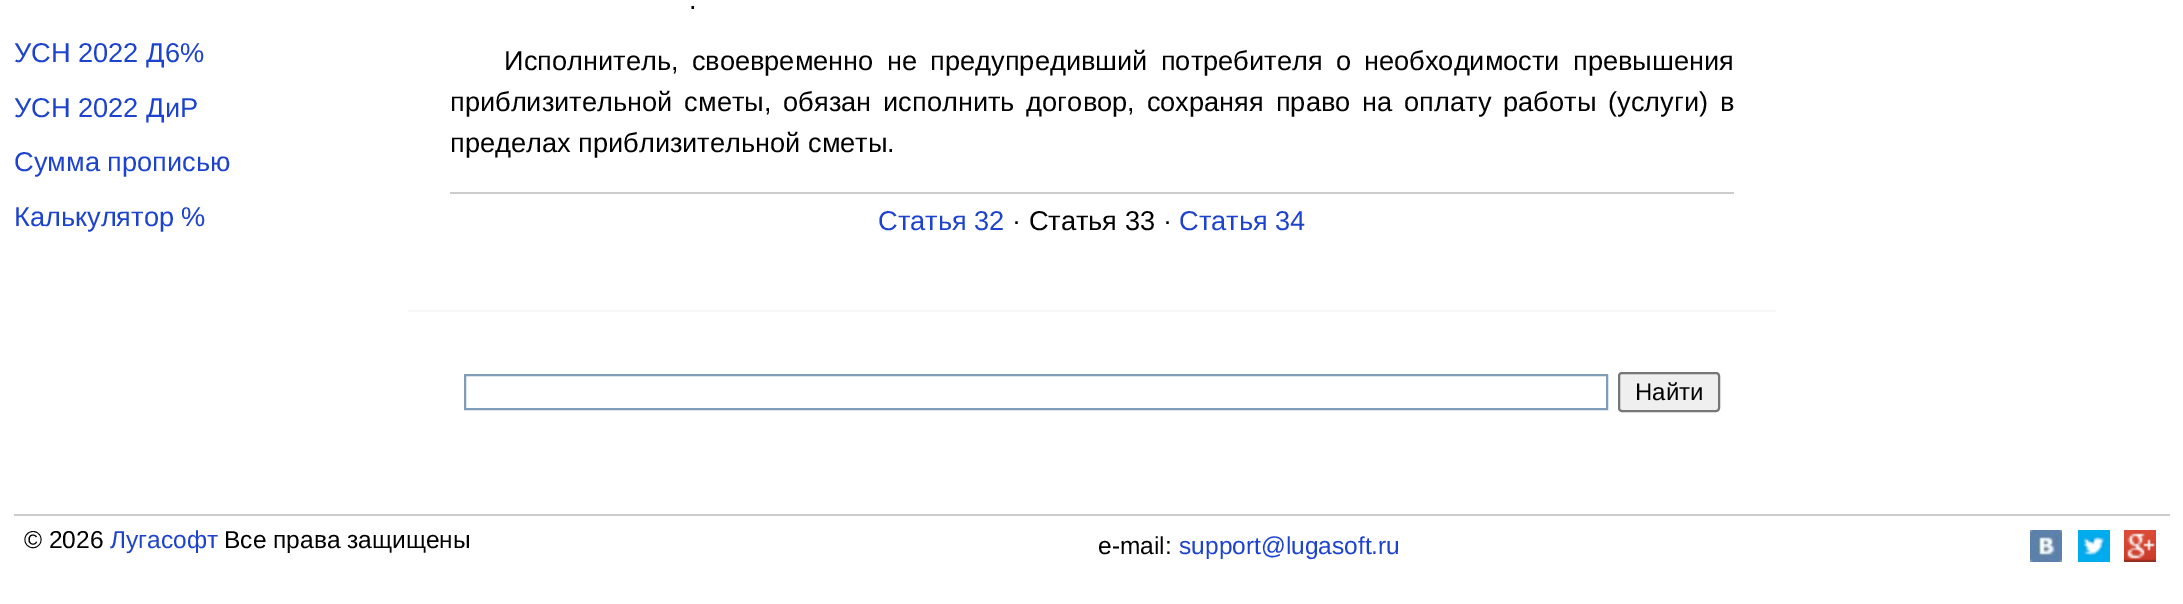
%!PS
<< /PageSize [2183 604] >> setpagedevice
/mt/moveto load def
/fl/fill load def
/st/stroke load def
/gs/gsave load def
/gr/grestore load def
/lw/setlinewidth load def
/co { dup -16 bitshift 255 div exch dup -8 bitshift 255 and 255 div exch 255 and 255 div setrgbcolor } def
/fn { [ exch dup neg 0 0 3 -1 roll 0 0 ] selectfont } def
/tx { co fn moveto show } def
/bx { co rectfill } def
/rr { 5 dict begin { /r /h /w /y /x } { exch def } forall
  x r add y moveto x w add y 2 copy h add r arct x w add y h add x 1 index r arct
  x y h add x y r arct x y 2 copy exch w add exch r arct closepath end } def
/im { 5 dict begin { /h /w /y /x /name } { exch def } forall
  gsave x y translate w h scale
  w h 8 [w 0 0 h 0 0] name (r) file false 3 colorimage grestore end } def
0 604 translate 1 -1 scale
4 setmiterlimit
0 0 2183 604 16#FFFFFF bx
408 310 1368 2 16#F8F8F8 bx
450 192 1284 2 16#CCCCCC bx
16#7F9DB9 co
2 lw
465 375 1142 34 rectstroke
16#EFEFEF co
1619 373 100 38 3 rr gs fl gr
16#767676 co
st
14 514 2156 2 16#CCCCCC bx
(media/1.raw) 2030 530 32 32 im
(media/2.raw) 2078 530 32 32 im
(media/3.raw) 2124 530 32 32 im
(УСН 2022 Д6%) 14 62 /LiberationSans-Regular 27.2 16#1C42CE tx
(УСН 2022 ДиР) 14 117 /LiberationSans-Regular 27.2 16#1C42CE tx
(Сумма прописью) 14 171 /LiberationSans-Regular 27.2 16#1C42CE tx
(Калькулятор %) 14 226 /LiberationSans-Regular 27.2 16#1C42CE tx
(.) 689 9 /LiberationSans-Regular 27.2 16#000000 tx
504 70 mt 5.75 0 32 (Исполнитель, своевременно не предупредивший потребителя о необходимости превышения) widthshow
450 111 mt 4.4 0 32 (приблизительной сметы, обязан исполнить договор, сохраняя право на оплату работы \(услуги\) в) widthshow
(пределах приблизительной сметы.) 450 152 /LiberationSans-Regular 27.2 16#000000 tx
(Статья 32) 878 230 /LiberationSans-Regular 27.2 16#1C42CE tx
(· Статья 33 ·) 1012 230 /LiberationSans-Regular 27.2 16#000000 tx
(Статья 34) 1179 230 /LiberationSans-Regular 27.2 16#1C42CE tx
(Найти) 1635 400 /LiberationSans-Regular 24 16#000000 tx
(© 2026) 24 548 /LiberationSans-Regular 24.5 16#000000 tx
(Лугасофт) 110 548 /LiberationSans-Regular 24.5 16#1C42CE tx
(Все права защищены) 224 548 /LiberationSans-Regular 24.5 16#000000 tx
(e-mail:) 1098 554 /LiberationSans-Regular 24.5 16#000000 tx
(support@lugasoft.ru) 1179 554 /LiberationSans-Regular 24.5 16#1C42CE tx
showpage
